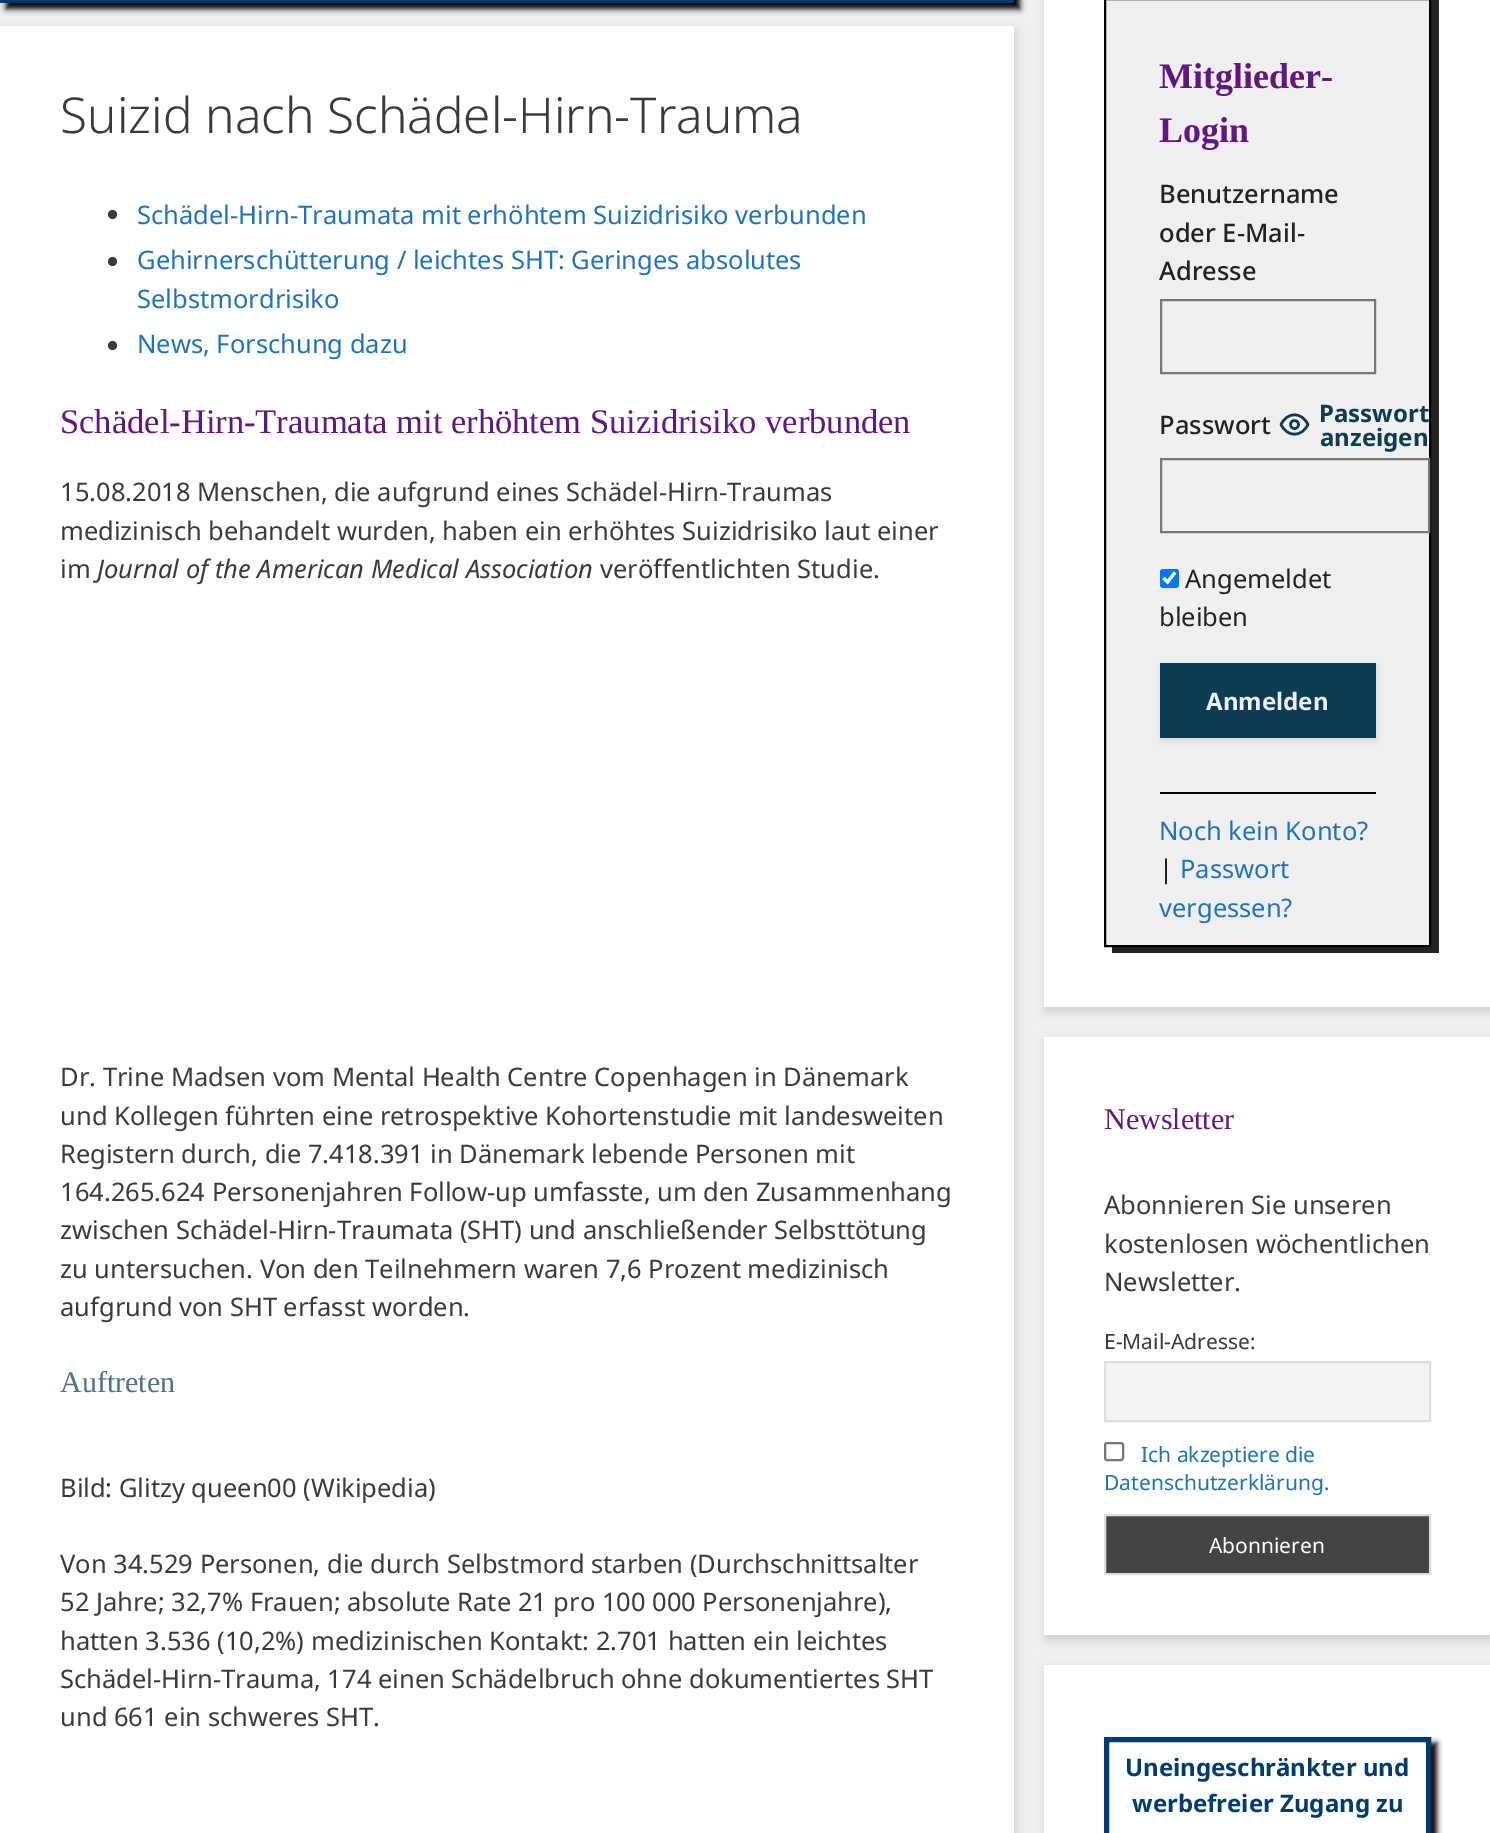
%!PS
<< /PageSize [1490 1833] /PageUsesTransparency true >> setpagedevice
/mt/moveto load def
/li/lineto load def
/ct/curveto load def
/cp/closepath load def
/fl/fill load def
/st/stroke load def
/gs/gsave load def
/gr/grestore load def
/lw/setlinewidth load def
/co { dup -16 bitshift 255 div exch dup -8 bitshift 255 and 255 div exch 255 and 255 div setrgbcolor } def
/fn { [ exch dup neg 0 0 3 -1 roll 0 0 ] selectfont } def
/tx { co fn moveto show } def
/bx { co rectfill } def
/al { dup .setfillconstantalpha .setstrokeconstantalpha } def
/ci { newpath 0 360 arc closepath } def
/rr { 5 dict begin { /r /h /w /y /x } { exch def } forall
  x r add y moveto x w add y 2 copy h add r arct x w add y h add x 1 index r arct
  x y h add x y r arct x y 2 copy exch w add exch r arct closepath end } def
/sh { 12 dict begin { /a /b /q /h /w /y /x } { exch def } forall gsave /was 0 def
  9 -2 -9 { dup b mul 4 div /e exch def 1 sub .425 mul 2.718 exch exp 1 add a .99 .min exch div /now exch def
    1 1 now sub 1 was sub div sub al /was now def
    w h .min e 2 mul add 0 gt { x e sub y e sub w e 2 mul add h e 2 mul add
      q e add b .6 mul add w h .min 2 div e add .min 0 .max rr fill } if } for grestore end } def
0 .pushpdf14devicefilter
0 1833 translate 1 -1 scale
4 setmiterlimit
0 0 1490 1833 16#EFEFEF bx
16#000000 co
6 -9 1014 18 0 3 1 sh
0 0 1014 3 16#013C70 bx
16#CCCCCC co
2 30 1014 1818 0 5 1 sh
0 26 1014 1807 16#FFFFFF bx
16#3A3A3A co
112.5 214.5 4.5 ci fl
112.5 261.5 4.5 ci fl
112.5 345.5 4.5 ci fl
16#CCCCCC co
1046 -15 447 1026 0 5 1 sh
1044 0 446 1007 16#FFFFFF bx
16#222222 co
1112 946 mt 1112 953 li 1439 953 li 1439 0 li 1431 0 li 1431 946 li cp fl
16#EFEFEF co
1105 -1 mt 1430 -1 li 1430 946 li 1105 946 li cp gs fl gr
16#000000 co
2 lw
st
16#777777 co
1161 300 214 73 rectstroke
16#0C3D54 co
2.5 lw
1 setlinecap
1 setlinejoin
1281 424.5 mt 1287.5 411.5 1301.5 411.5 1308 424.5 ct 1301.5 437.5 1287.5 437.5 1281 424.5 ct cp st
0 setlinecap
0 setlinejoin
1294.5 424.5 4 ci st
16#777777 co
2 lw
1161 459 268 73 rectstroke
16#0075FF co
1160 569 19 19 3 rr fl
16#FFFFFF co
3.1 lw
1163.5 578 mt 1167.5 582 li 1175 572.5 li st
16#000000 co
1161 666 216 75 0 3 .1 sh
1160 663 216 75 16#0C3D54 bx
1160 792 216 2 16#000000 bx
16#CCCCCC co
1046 1041 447 599 0 5 1 sh
1044 1037 446 598 16#FFFFFF bx
16#F4F4F4 co
1105 1362 mt 1430 1362 li 1430 1421 li 1105 1421 li cp gs fl gr
16#DDDDDD co
2 lw
st
16#767676 co
1105 1443 18 17 2 rr st
16#444444 co
1105 1515 mt 1430 1515 li 1430 1574 li 1105 1574 li cp gs fl gr
16#DDDDDD co
st
16#CCCCCC co
1046 1670 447 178 0 5 1 sh
1044 1665 446 168 16#FFFFFF bx
gs
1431 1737 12 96 rectclip
16#000000 co
1110 1743 327 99 0 3 1 sh
gr
16#013C70 co
5 lw
1106.5 1739.5 322 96 rectstroke
(Suizid nach Schädel-Hirn-Trauma) 60 133 /NotoSans-Light 49.5 16#3A3A3A tx
(Schädel-Hirn-Traumata mit erhöhtem Suizidrisiko verbunden) 137 224 /NotoSans-Regular 25.5 16#1E73BE tx
(Gehirnerschütterung / leichtes SHT: Geringes absolutes) 137 269 /NotoSans-Regular 25.5 16#1E73BE tx
(Selbstmordrisiko) 137 308 /NotoSans-Regular 25.5 16#1E73BE tx
(News, Forschung dazu) 137 353 /NotoSans-Regular 25.5 16#1E73BE tx
(Schädel-Hirn-Traumata mit erhöhtem Suizidrisiko verbunden) 60 433 /LiberationSerif-Regular 34.5 16#631580 tx
(15.08.2018 Menschen, die aufgrund eines Schädel-Hirn-Traumas) 60 501 /NotoSans-Regular 25.5 16#3A3A3A tx
(medizinisch behandelt wurden, haben ein erhöhtes Suizidrisiko laut einer) 60 540 /NotoSans-Regular 25.5 16#3A3A3A tx
(im) 60 578 /NotoSans-Regular 25.5 16#3A3A3A tx
(Journal of the American Medical Association) 97 578 /NotoSans-Italic 25.5 16#3A3A3A tx
(veröffentlichten Studie.) 600 578 /NotoSans-Regular 25.5 16#3A3A3A tx
(Dr. Trine Madsen vom Mental Health Centre Copenhagen in Dänemark) 60 1086 /NotoSans-Regular 25.5 16#3A3A3A tx
(und Kollegen führten eine retrospektive Kohortenstudie mit landesweiten) 60 1125 /NotoSans-Regular 25.5 16#3A3A3A tx
(Registern durch, die 7.418.391 in Dänemark lebende Personen mit) 60 1163 /NotoSans-Regular 25.5 16#3A3A3A tx
(164.265.624 Personenjahren Follow-up umfasste, um den Zusammenhang) 60 1201 /NotoSans-Regular 25.5 16#3A3A3A tx
(zwischen Schädel-Hirn-Traumata \(SHT\) und anschließender Selbsttötung) 60 1239 /NotoSans-Regular 25.5 16#3A3A3A tx
(zu untersuchen. Von den Teilnehmern waren 7,6 Prozent medizinisch) 60 1278 /NotoSans-Regular 25.5 16#3A3A3A tx
(aufgrund von SHT erfasst worden.) 60 1316 /NotoSans-Regular 25.5 16#3A3A3A tx
(Auftreten) 60 1392 /LiberationSerif-Regular 30 16#4E7184 tx
(Bild: Glitzy queen00 \(Wikipedia\)) 60 1497 /NotoSans-Regular 25.5 16#3A3A3A tx
(Von 34.529 Personen, die durch Selbstmord starben \(Durchschnittsalter) 60 1573 /NotoSans-Regular 25.5 16#3A3A3A tx
(52 Jahre; 32,7% Frauen; absolute Rate 21 pro 100 000 Personenjahre\),) 60 1611 /NotoSans-Regular 25.5 16#3A3A3A tx
(hatten 3.536 \(10,2%\) medizinischen Kontakt: 2.701 hatten ein leichtes) 60 1650 /NotoSans-Regular 25.5 16#3A3A3A tx
(Schädel-Hirn-Trauma, 174 einen Schädelbruch ohne dokumentiertes SHT) 60 1688 /NotoSans-Regular 25.5 16#3A3A3A tx
(und 661 ein schweres SHT.) 60 1726 /NotoSans-Regular 25.5 16#3A3A3A tx
(Mitglieder-) 1159 88 /LiberationSerif-Bold 36 16#631580 tx
(Login) 1159 142 /LiberationSerif-Bold 36 16#631580 tx
(Benutzername) 1159 203 /NotoSans-Medium 25.5 16#222222 tx
(oder E-Mail-) 1159 242 /NotoSans-Medium 25.5 16#222222 tx
(Adresse) 1159 280 /NotoSans-Medium 25.5 16#222222 tx
(Passwort) 1159 434 /NotoSans-Medium 25.5 16#222222 tx
(Passwort) 1319 422 /NotoSans-Bold 24 16#0C3D54 tx
(anzeigen) 1320 446 /NotoSans-Bold 24 16#0C3D54 tx
(Angemeldet) 1185 588 /NotoSans-Regular 25.5 16#222222 tx
(bleiben) 1159 626 /NotoSans-Regular 25.5 16#222222 tx
(Anmelden) 1206 710 /NotoSans-Bold 24 16#EFEFEF tx
(Noch kein Konto?) 1159 840 /NotoSans-Regular 25.5 16#1E73BE tx
(|) 1159 878 /NotoSans-Regular 25.5 16#222222 tx
(Passwort) 1180 878 /NotoSans-Regular 25.5 16#1E73BE tx
(vergessen?) 1159 917 /NotoSans-Regular 25.5 16#1E73BE tx
(Newsletter) 1104 1129 /LiberationSerif-Regular 30 16#631580 tx
(Abonnieren Sie unseren) 1104 1214 /NotoSans-Regular 25.5 16#3A3A3A tx
(kostenlosen wöchentlichen) 1104 1253 /NotoSans-Regular 25.5 16#3A3A3A tx
(Newsletter.) 1104 1291 /NotoSans-Regular 25.5 16#3A3A3A tx
(E-Mail-Adresse:) 1104 1349 /NotoSans-Regular 21 16#3A3A3A tx
(Ich akzeptiere die) 1141 1462 /NotoSans-Regular 21 16#1E73BE tx
(Datenschutzerklärung.) 1104 1490 /NotoSans-Regular 21 16#1E73BE tx
(Abonnieren) 1209 1553 /NotoSans-Regular 21 16#FFFFFF tx
(Uneingeschränkter und) 1125 1776 /NotoSans-Bold 24 16#013C70 tx
(werbefreier Zugang zu) 1132 1812 /NotoSans-Bold 24 16#013C70 tx
.poppdf14devicefilter showpage
